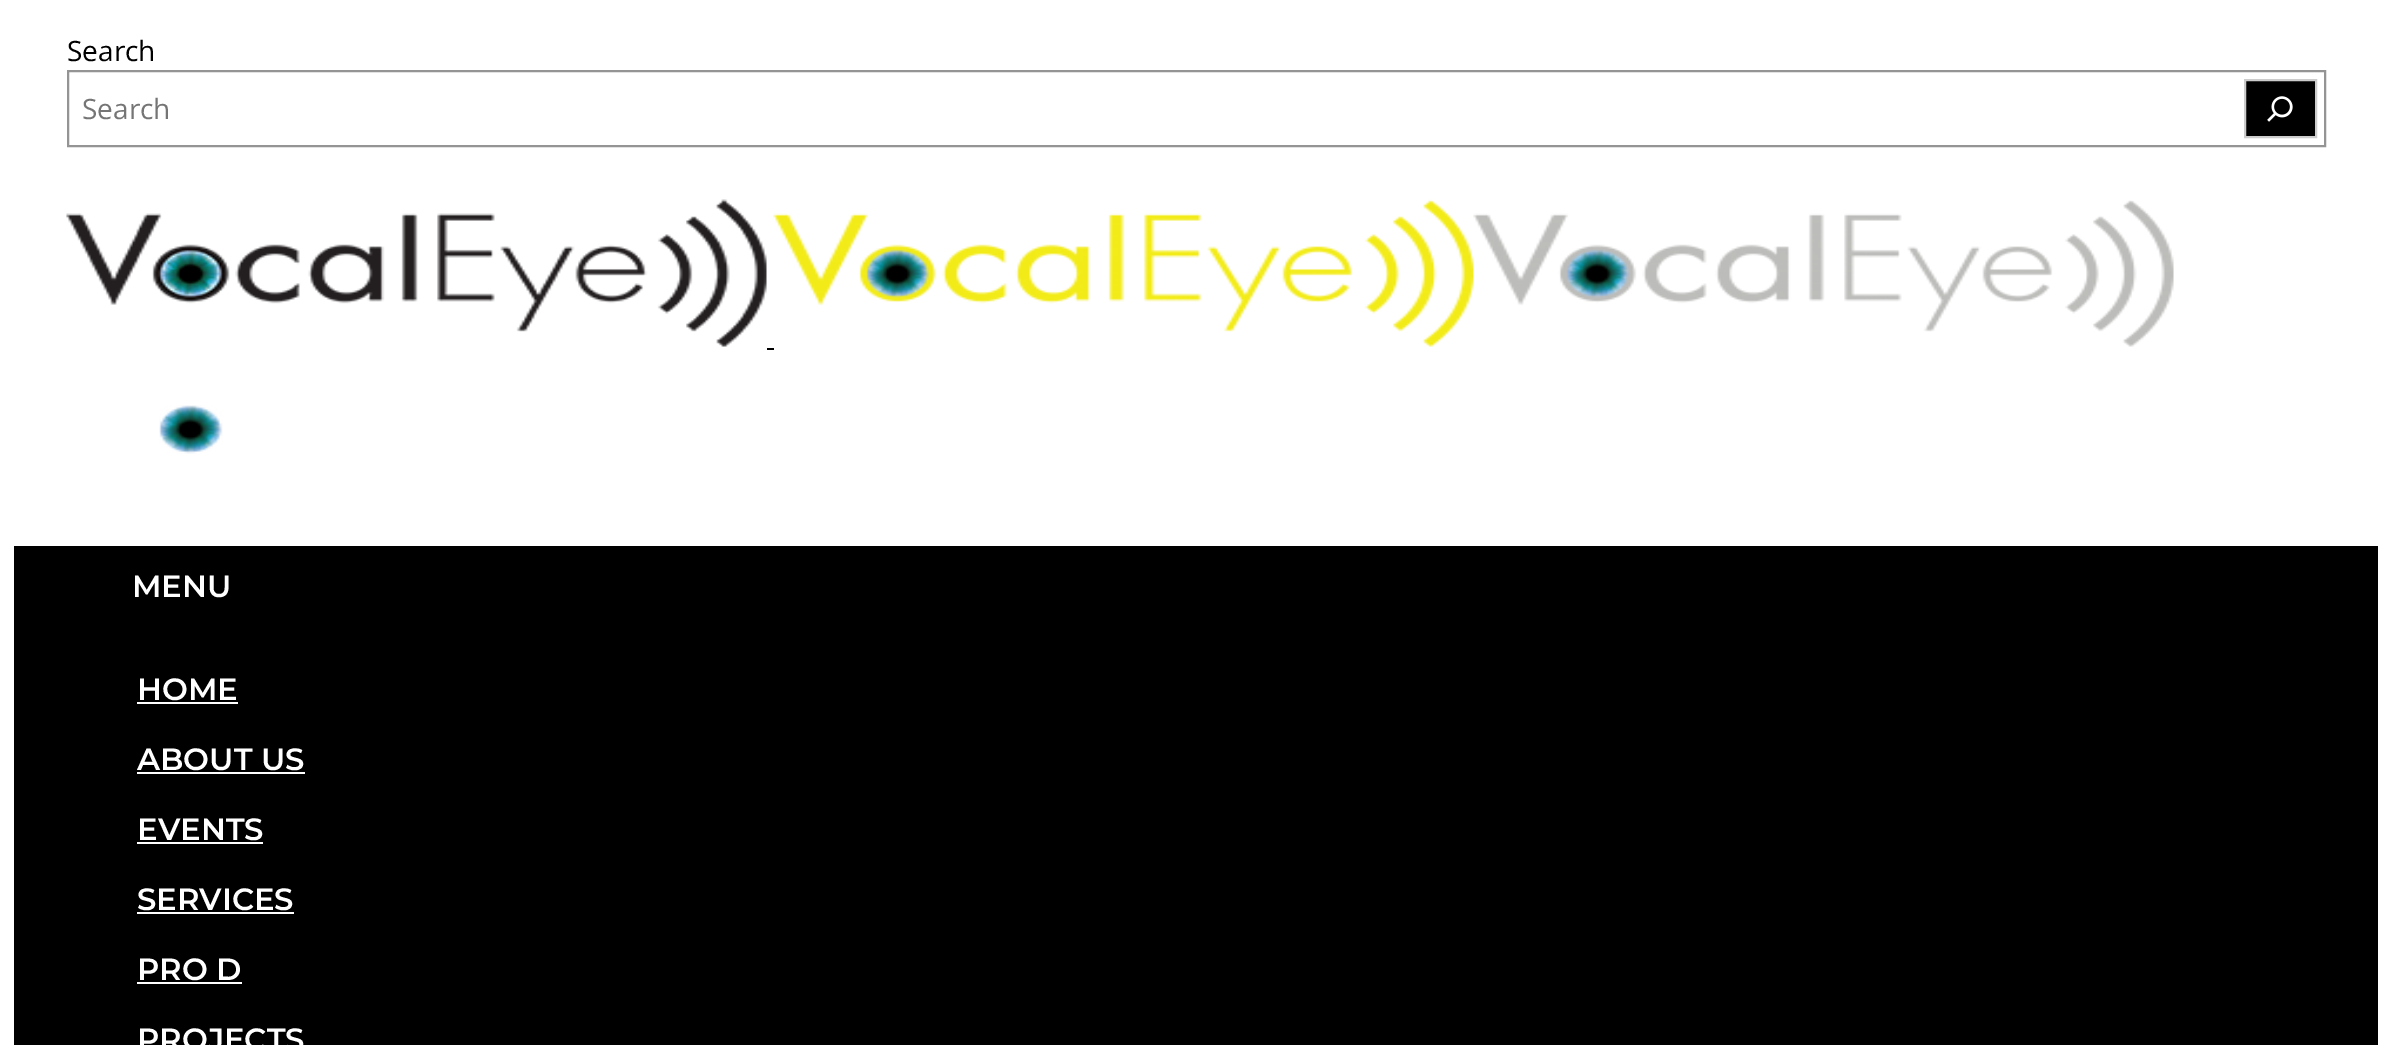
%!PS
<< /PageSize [2392 1045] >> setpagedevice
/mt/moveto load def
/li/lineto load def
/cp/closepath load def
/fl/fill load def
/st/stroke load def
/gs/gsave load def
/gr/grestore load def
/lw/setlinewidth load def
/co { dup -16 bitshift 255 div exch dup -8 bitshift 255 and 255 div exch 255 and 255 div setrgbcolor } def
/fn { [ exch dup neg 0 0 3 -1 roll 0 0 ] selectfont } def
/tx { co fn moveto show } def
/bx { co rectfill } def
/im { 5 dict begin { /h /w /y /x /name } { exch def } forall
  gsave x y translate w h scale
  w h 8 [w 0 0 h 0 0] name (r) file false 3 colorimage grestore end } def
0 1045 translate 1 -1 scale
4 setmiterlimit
0 0 2392 1045 16#FFFFFF bx
16#949494 co
2 lw
68 71 2257 75 rectstroke
16#000000 co
2245 80 mt 2316 80 li 2316 137 li 2245 137 li cp gs fl gr
16#CCCCCC co
st
(media/1.raw) 2267 96 26 26 im
(media/2.raw) 66 199 701 148 im
(media/3.raw) 773 199 701 148 im
(media/4.raw) 1473 200 701 147 im
767 348 7 2 16#000000 bx
(media/5.raw) 159 405 64 49 im
14 546 2364 499 16#000000 bx
137 702 101 2 16#FFFFFF bx
137 772 168 2 16#FFFFFF bx
137 842 126 2 16#FFFFFF bx
137 912 157 2 16#FFFFFF bx
137 982 105 2 16#FFFFFF bx
(Search) 67 61 /OpenSans-Regular 28 16#000000 tx
(Search) 82 119 /OpenSans-Regular 28 16#757575 tx
(MENU) 132 597 /Montserrat-SemiBold 30.75 16#FFFFFF tx
(HOME) 137 700 /Montserrat-SemiBold 30.75 16#FFFFFF tx
(ABOUT US) 137 770 /Montserrat-SemiBold 30.75 16#FFFFFF tx
(EVENTS) 137 840 /Montserrat-SemiBold 30.75 16#FFFFFF tx
(SERVICES) 137 910 /Montserrat-SemiBold 30.75 16#FFFFFF tx
(PRO D) 137 980 /Montserrat-SemiBold 30.75 16#FFFFFF tx
(PROJECTS) 137 1050 /Montserrat-SemiBold 30.75 16#FFFFFF tx
showpage
